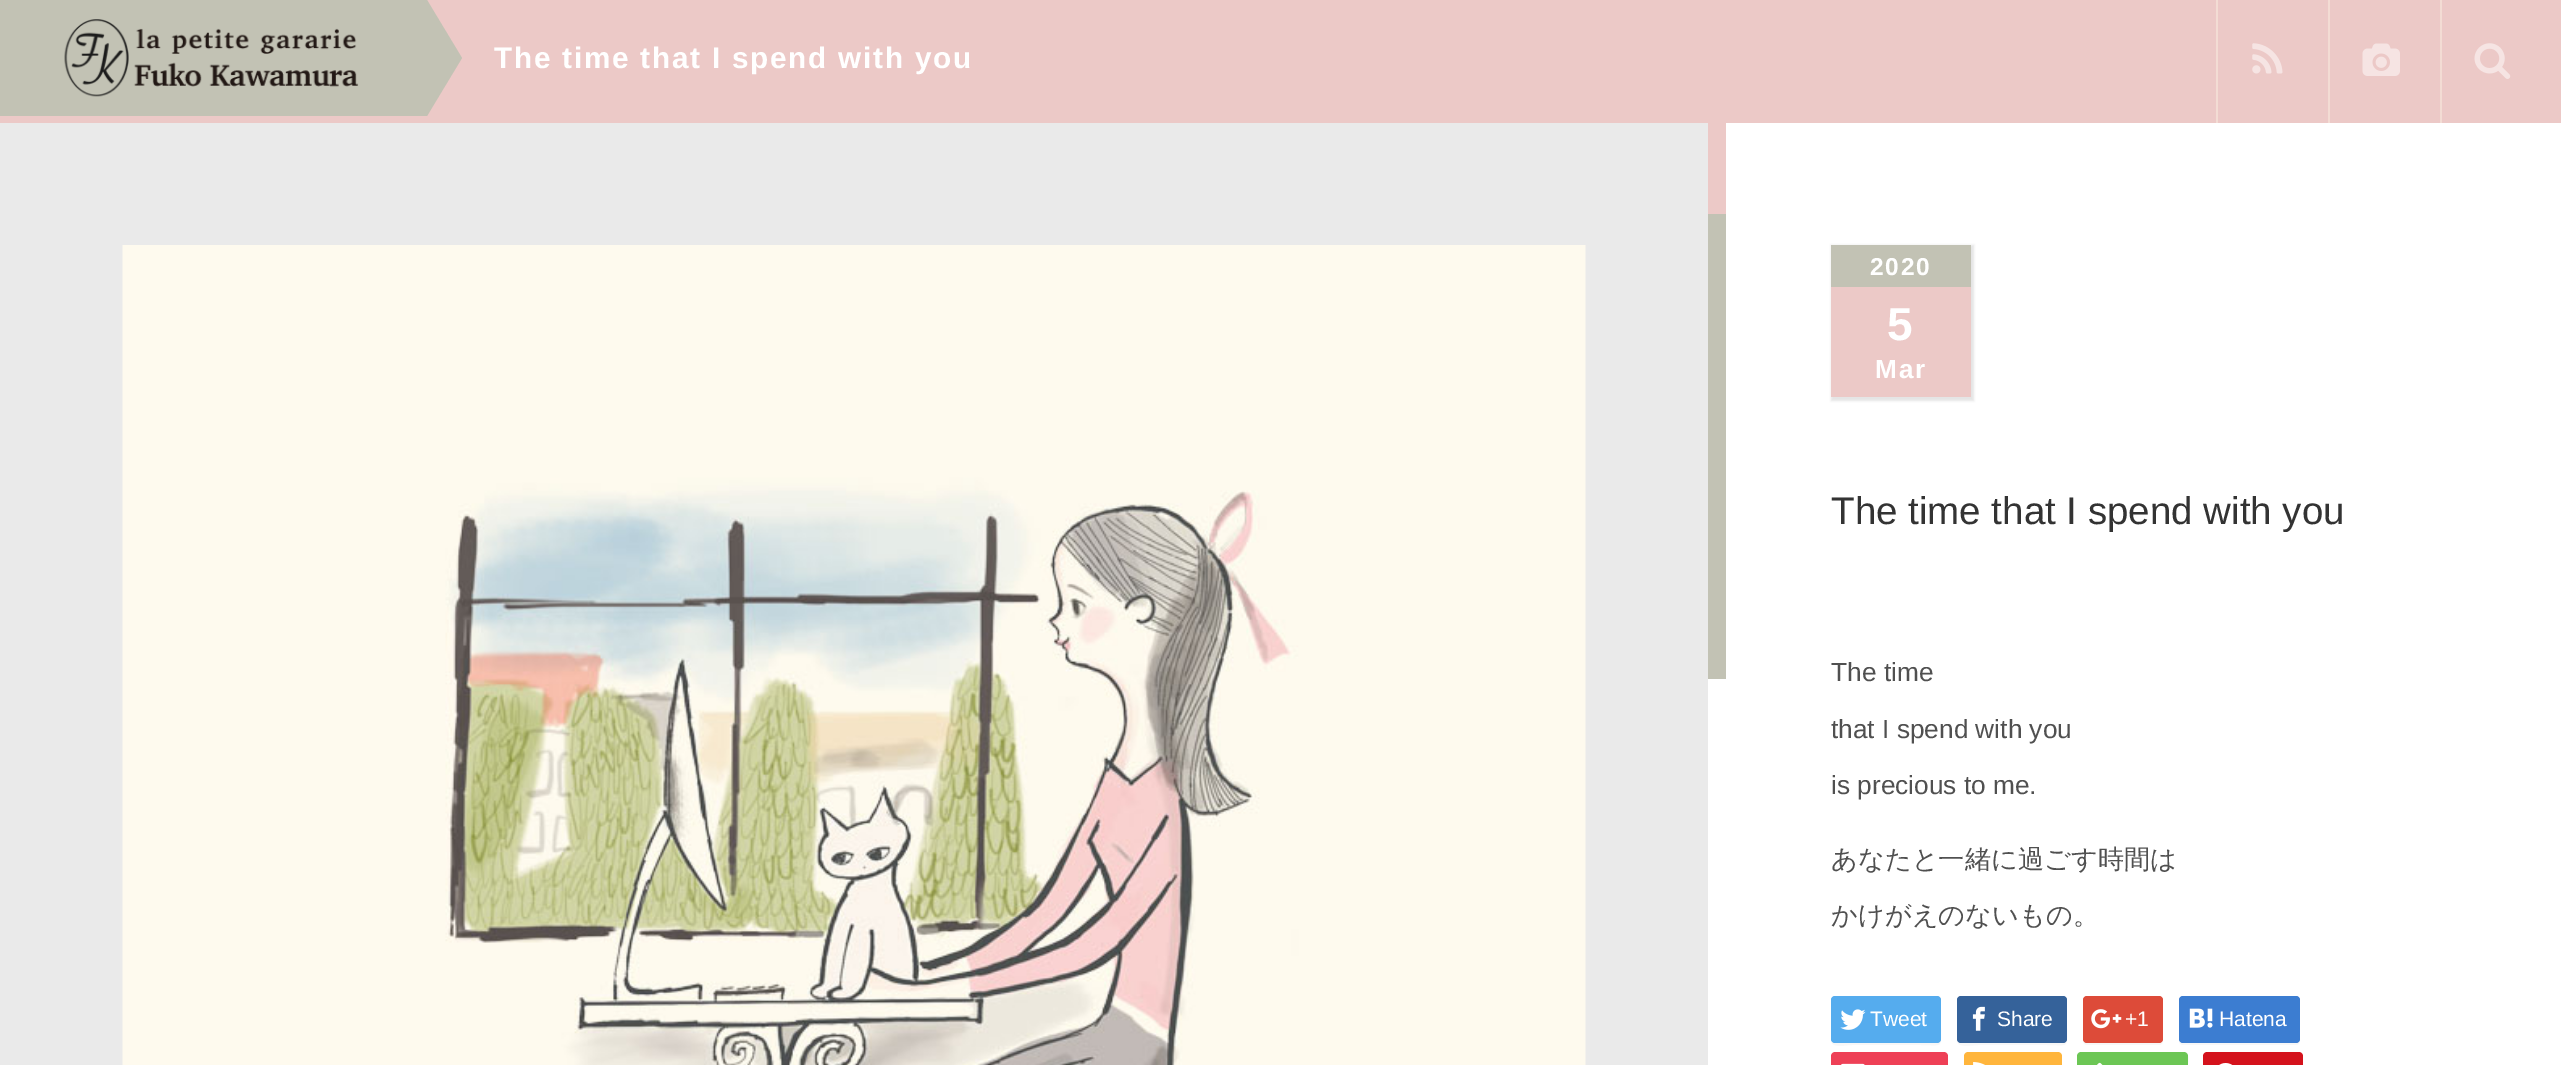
%!PS
<< /PageSize [2561 1065] /PageUsesTransparency true >> setpagedevice
/mt/moveto load def
/li/lineto load def
/ct/curveto load def
/cp/closepath load def
/fl/fill load def
/gs/gsave load def
/gr/grestore load def
/co { dup -16 bitshift 255 div exch dup -8 bitshift 255 and 255 div exch 255 and 255 div setrgbcolor } def
/fn { [ exch dup neg 0 0 3 -1 roll 0 0 ] selectfont } def
/tx { co fn moveto show } def
/bx { co rectfill } def
/al { dup .setfillconstantalpha .setstrokeconstantalpha } def
/rr { 5 dict begin { /r /h /w /y /x } { exch def } forall
  x r add y moveto x w add y 2 copy h add r arct x w add y h add x 1 index r arct
  x y h add x y r arct x y 2 copy exch w add exch r arct closepath end } def
/sh { 12 dict begin { /a /b /q /h /w /y /x } { exch def } forall gsave /was 0 def
  9 -2 -9 { dup b mul 4 div /e exch def 1 sub .425 mul 2.718 exch exp 1 add a .99 .min exch div /now exch def
    1 1 now sub 1 was sub div sub al /was now def
    w h .min e 2 mul add 0 gt { x e sub y e sub w e 2 mul add h e 2 mul add
      q e add b .6 mul add w h .min 2 div e add .min 0 .max rr fill } if } for grestore end } def
/im { 5 dict begin { /h /w /y /x /name } { exch def } forall
  gsave x y translate w h scale
  w h 8 [w 0 0 h 0 0] name (r) file false 3 colorimage grestore end } def
0 .pushpdf14devicefilter
0 1065 translate 1 -1 scale
4 setmiterlimit
0 0 2561 1065 16#EAEAEA bx
0 0 2561 123 16#ECC9C7 bx
1708 123 853 942 16#FFFFFF bx
1708 123 18 91 16#ECC9C7 bx
gs
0 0 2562 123 rectclip
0 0 mt 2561 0 li 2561 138 li 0 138 li cp 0 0 mt 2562 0 li 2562 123 li 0 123 li cp eoclip newpath
16#000000 co
0 0 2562 123 0 4.5 1 sh
gr
0 0 427 116 16#C2C2B4 bx
(media/1.raw) 64 19 295 78 im
427 116 mt 427 0 li 462 58 li cp fl
2216 0 2 123 16#F3DCD4 bx
(media/2.raw) 2252 43 31 31 im
2328 0 2 123 16#F3DCD4 bx
(media/3.raw) 2362 43 38 33 im
2440 0 2 123 16#F3DCD4 bx
(media/4.raw) 2474 43 37 36 im
(media/5.raw) 122 245 1464 820 im
1708 214 18 465 16#C2C2B4 bx
16#000000 co
1831 245 143 156 0 1 .1 sh
1831 287 140 110 16#ECC9C7 bx
1831 245 140 42 16#C2C2B4 bx
16#F7F7F7 co
1831 1041 mt 1832 1048 1845 1045 1852 1045 ct 1920 1045 li 1943 1045 1941 1049 1941 1028 ct 1941 1001 li 1941 1040 li 1941 1041 1939 1043 1937 1043 ct 1834 1043 li 1833 1043 1832 1042 1831 1041 ct cp fl
16#55ACEE co
1831 996 110 47 4 rr fl
(media/6.raw) 1840 1009 26 21 im
16#F7F7F7 co
1957 1041 mt 1958 1048 1971 1045 1978 1045 ct 2046 1045 li 2069 1045 2067 1049 2067 1028 ct 2067 1001 li 2067 1040 li 2067 1041 2065 1043 2063 1043 ct 1960 1043 li 1959 1043 1958 1042 1957 1041 ct cp fl
16#35629A co
1957 996 110 47 4 rr fl
(media/7.raw) 1972 1006 13 25 im
16#F7F7F7 co
2083 1041 mt 2083 1043 2085 1045 2087 1045 ct 2159 1045 li 2161 1045 2163 1043 2163 1041 ct 2163 1040 li 2163 1041 li 2162 1042 2161 1043 2160 1043 ct 2086 1043 li cp fl
16#DD4B39 co
2083 996 80 47 4 rr fl
(media/8.raw) 2091 1009 31 20 im
16#F7F7F7 co
2179 1041 mt 2179 1043 2181 1045 2183 1045 ct 2296 1045 li 2298 1045 2300 1043 2300 1041 ct 2300 1002 li 2300 1000 li 2300 1040 li 2300 1041 2298 1043 2296 1043 ct 2182 1043 li 2181 1043 2180 1042 2179 1041 ct cp fl
16#3C7DD1 co
2179 996 121 47 4 rr fl
(media/9.raw) 2189 1008 24 20 im
16#EE4056 co
1835 1052 mt 1944 1052 li 1946 1052 1948 1054 1948 1056 ct 1948 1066 li 1831 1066 li 1831 1056 li 1831 1054 1833 1052 1835 1052 ct cp fl
(media/10.raw) 1841 1063 24 2 im
16#FFB53C co
1968 1052 mt 2058 1052 li 2060 1052 2062 1054 2062 1056 ct 2062 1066 li 1964 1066 li 1964 1056 li 1964 1054 1966 1052 1968 1052 ct cp fl
(media/11.raw) 1973 1062 12 3 im
16#F7F7F7 co
2077 1057 mt 2077 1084 li 2077 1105 2075 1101 2098 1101 ct 2167 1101 li 2190 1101 2188 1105 2188 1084 ct 2188 1064 li 2188 1063 2189 1058 2188 1056 ct 2188 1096 li 2188 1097 2186 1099 2184 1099 ct 2081 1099 li 2079 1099 2077 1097 2077 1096 ct cp fl
16#6CC655 co
2081 1052 mt 2184 1052 li 2186 1052 2188 1054 2188 1056 ct 2188 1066 li 2077 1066 li 2077 1056 li 2077 1054 2079 1052 2081 1052 ct cp fl
(media/12.raw) 2097 1062 6 3 im
16#D4121C co
2207 1052 mt 2299 1052 li 2301 1052 2303 1054 2303 1056 ct 2303 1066 li 2203 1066 li 2203 1056 li 2203 1054 2205 1052 2207 1052 ct cp fl
(media/13.raw) 2219 1063 14 2 im
/LiberationSans-Bold 29.75 fn
16#FFFFFF co
494 68 mt 1.75 0 (The time that I spend with you) ashow
/LiberationSans-Bold 24.5 fn
1870 275 mt 1.75 0 (2020) ashow
/LiberationSans-Bold 46 fn
1887 340 mt 1.75 0 (5) ashow
/LiberationSans-Bold 26.25 fn
1875 378 mt 1.75 0 (Mar) ashow
(The time that I spend with you) 1831 524 /LiberationSans-Regular 38.5 16#333333 tx
(The time) 1831 681 /LiberationSans-Regular 26.25 16#505050 tx
(that I spend with you) 1831 738 /LiberationSans-Regular 26.25 16#505050 tx
(is precious to me.) 1831 794 /LiberationSans-Regular 26.25 16#505050 tx
(あなたと一緒に過ごす時間は) 1831 868 /WenQuanYiZenHei-Medium 26.25 16#505050 tx
(かけがえのないもの。) 1831 924 /WenQuanYiZenHei-Medium 26.25 16#505050 tx
(Tweet) 1870 1026 /LiberationSans-Regular 21 16#FFFFFF tx
(Share) 1997 1026 /LiberationSans-Regular 21 16#FFFFFF tx
(+1) 2125 1026 /LiberationSans-Regular 21 16#FFFFFF tx
(Hatena) 2219 1026 /LiberationSans-Regular 21 16#FFFFFF tx
.poppdf14devicefilter showpage
